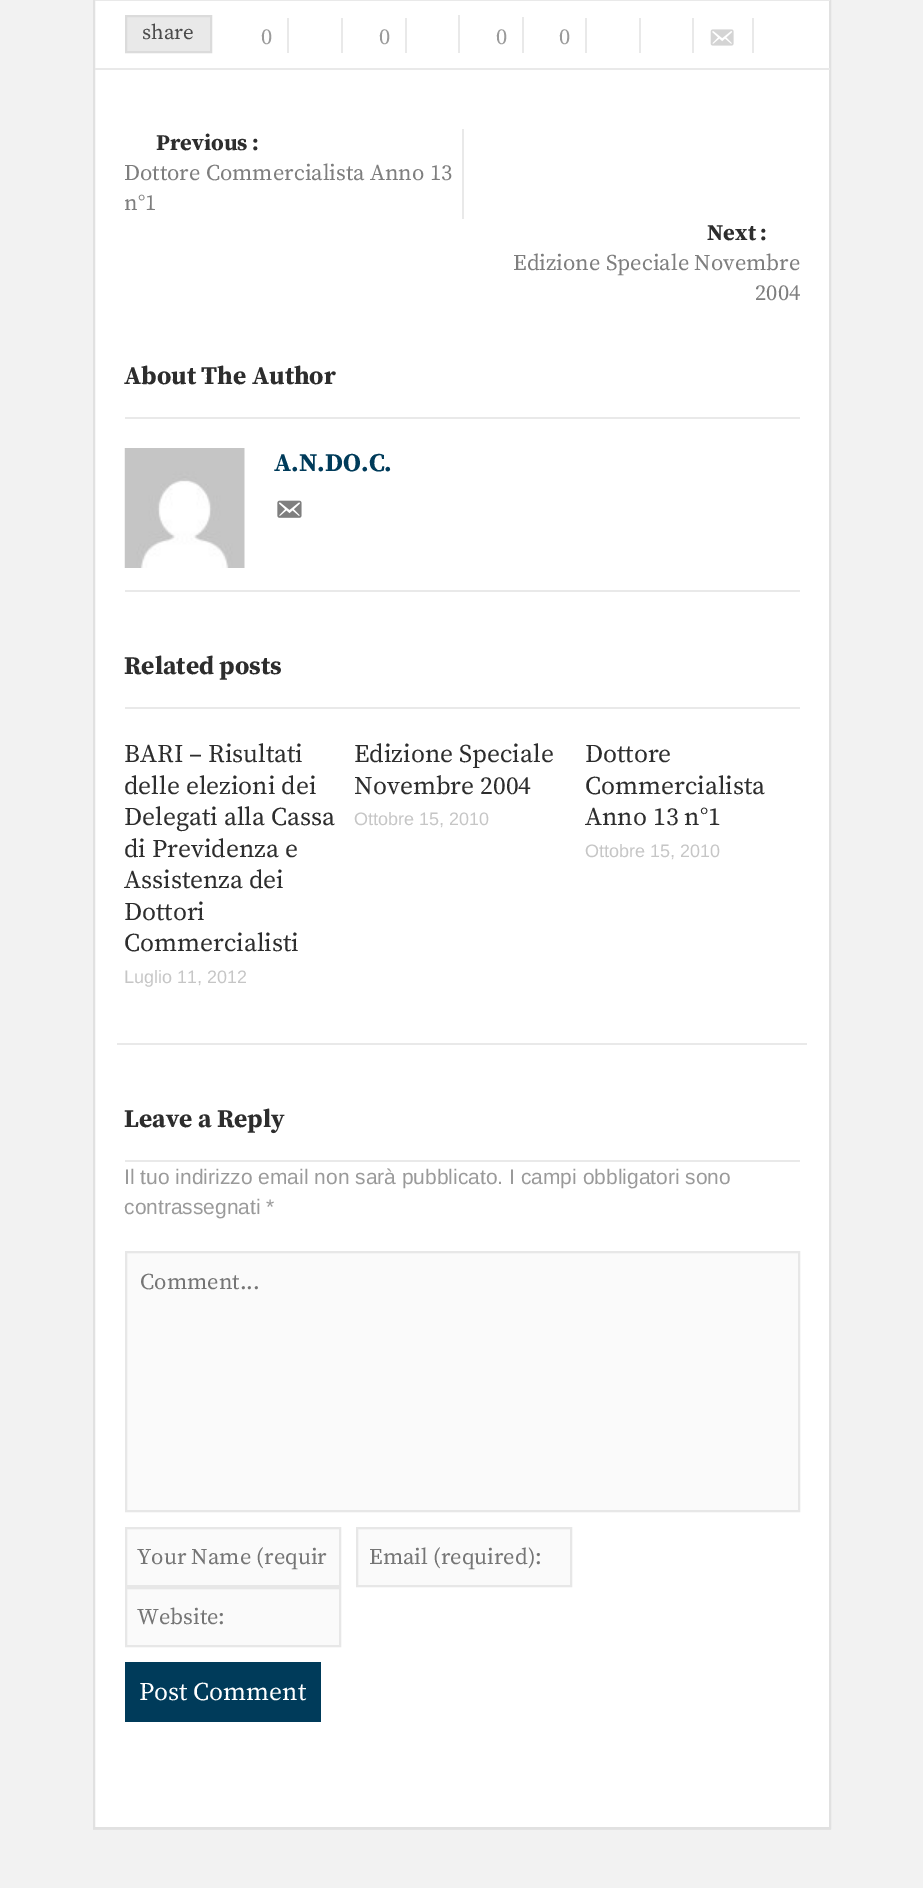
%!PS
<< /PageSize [923 1888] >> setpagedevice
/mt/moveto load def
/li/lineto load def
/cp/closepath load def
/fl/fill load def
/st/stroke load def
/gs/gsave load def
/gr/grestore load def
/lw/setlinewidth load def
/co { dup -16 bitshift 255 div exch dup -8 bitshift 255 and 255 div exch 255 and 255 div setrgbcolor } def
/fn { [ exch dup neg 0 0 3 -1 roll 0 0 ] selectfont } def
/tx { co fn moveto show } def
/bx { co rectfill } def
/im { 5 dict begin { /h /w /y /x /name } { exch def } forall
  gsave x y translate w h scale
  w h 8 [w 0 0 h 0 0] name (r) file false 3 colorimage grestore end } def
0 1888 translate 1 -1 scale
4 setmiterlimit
0 0 923 1888 16#F2F2F2 bx
93 1829 738 1 16#E5E5E5 bx
95 1 734 1826 16#FFFFFF bx
16#E1E1E1 co
2 lw
94 -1 736 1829 rectstroke
95 0 735 1 16#E9E9E9 bx
95 68 735 2 16#E9E9E9 bx
126 16 mt 211 16 li 211 52 li 126 52 li cp gs fl gr
16#DBDBDB co
st
287 18 2 35 16#E9E9E9 bx
341 18 2 35 16#E9E9E9 bx
405 18 2 35 16#E9E9E9 bx
458 15 2 38 16#E9E9E9 bx
522 17 2 36 16#E9E9E9 bx
585 18 2 35 16#E9E9E9 bx
639 18 2 35 16#E9E9E9 bx
692 18 2 35 16#E9E9E9 bx
752 18 2 35 16#E9E9E9 bx
(media/1.raw) 710 29 24 17 im
462 129 2 90 16#E9E9E9 bx
125 417 675 2 16#E9E9E9 bx
125 590 675 2 16#E9E9E9 bx
(media/2.raw) 124 448 121 120 im
(media/3.raw) 277 500 25 18 im
125 707 675 2 16#E9E9E9 bx
117 1043 690 2 16#E9E9E9 bx
125 1160 675 2 16#E9E9E9 bx
16#FAFAFA co
126 1252 mt 799 1252 li 799 1511 li 126 1511 li cp gs fl gr
16#E7E7E7 co
st
16#FAFAFA co
126 1528 mt 340 1528 li 340 1586 li 126 1586 li cp gs fl gr
16#E7E7E7 co
st
16#FAFAFA co
357 1528 mt 571 1528 li 571 1586 li 357 1586 li cp gs fl gr
16#E7E7E7 co
st
16#FAFAFA co
126 1588 mt 340 1588 li 340 1646 li 126 1646 li cp gs fl gr
16#E7E7E7 co
st
125 1662 196 60 16#003B5A bx
(share) 142 39 /SourceSerifPro-Regular 21 16#4B4B4B tx
(0) 261 44 /SourceSerifPro-Regular 22.5 16#9A9A9A tx
(0) 379 44 /SourceSerifPro-Regular 22.5 16#9A9A9A tx
(0) 496 44 /SourceSerifPro-Regular 22.5 16#9A9A9A tx
(0) 559 44 /SourceSerifPro-Regular 22.5 16#9A9A9A tx
(Previous :) 156 150 /SourceSerifPro-Bold 22.5 16#2D2D2D tx
(Dottore Commercialista Anno 13) 124 180 /SourceSerifPro-Regular 22.5 16#7E7E7E tx
gs
125 129 675 180 rectclip
(n°1) 124 210 /SourceSerifPro-Regular 22.5 16#7E7E7E tx
gr
(Next :) 707 240 /SourceSerifPro-Bold 22.5 16#2D2D2D tx
(Edizione Speciale Novembre) 513 270 /SourceSerifPro-Regular 22.5 16#7E7E7E tx
(2004) 755 300 /SourceSerifPro-Regular 22.5 16#7E7E7E tx
(About The Author) 124 384 /SourceSerifPro-Bold 25.5 16#2D2D2D tx
(A.N.DO.C.) 274 471 /SourceSerifPro-Bold 25.5 16#003B5A tx
(Related posts) 124 674 /SourceSerifPro-Bold 25.5 16#2D2D2D tx
(BARI – Risultati) 124 762 /SourceSerifPro-Regular 25.5 16#2D2D2D tx
(delle elezioni dei) 124 794 /SourceSerifPro-Regular 25.5 16#2D2D2D tx
(Delegati alla Cassa) 124 825 /SourceSerifPro-Regular 25.5 16#2D2D2D tx
(di Previdenza e) 124 857 /SourceSerifPro-Regular 25.5 16#2D2D2D tx
(Assistenza dei) 124 888 /SourceSerifPro-Regular 25.5 16#2D2D2D tx
(Dottori) 124 920 /SourceSerifPro-Regular 25.5 16#2D2D2D tx
(Commercialisti) 124 951 /SourceSerifPro-Regular 25.5 16#2D2D2D tx
(Luglio 11, 2012) 124 983 /LiberationSans-Regular 18 16#C6C6C6 tx
(Edizione Speciale) 354 762 /SourceSerifPro-Regular 25.5 16#2D2D2D tx
(Novembre 2004) 354 794 /SourceSerifPro-Regular 25.5 16#2D2D2D tx
(Ottobre 15, 2010) 354 825 /LiberationSans-Regular 18 16#C6C6C6 tx
(Dottore) 585 762 /SourceSerifPro-Regular 25.5 16#2D2D2D tx
(Commercialista) 585 794 /SourceSerifPro-Regular 25.5 16#2D2D2D tx
(Anno 13 n°1) 585 825 /SourceSerifPro-Regular 25.5 16#2D2D2D tx
(Ottobre 15, 2010) 585 857 /LiberationSans-Regular 18 16#C6C6C6 tx
(Leave a Reply) 124 1127 /SourceSerifPro-Bold 25.5 16#2D2D2D tx
(Il tuo indirizzo email non sarà pubblicato. I campi obbligatori sono) 124 1184 /LiberationSans-Regular 21 16#9A9A9A tx
(contrassegnati *) 124 1214 /LiberationSans-Regular 21 16#9A9A9A tx
(Comment...) 140 1289 /SourceSerifPro-Regular 22.5 16#757575 tx
(Your Name \(requir) 137 1564 /SourceSerifPro-Regular 22.5 16#757575 tx
(Email \(required\):) 369 1564 /SourceSerifPro-Regular 22.5 16#757575 tx
(Website:) 137 1624 /SourceSerifPro-Regular 22.5 16#757575 tx
(Post Comment) 139 1700 /SourceSerifPro-Regular 25.5 16#FFFFFF tx
showpage
